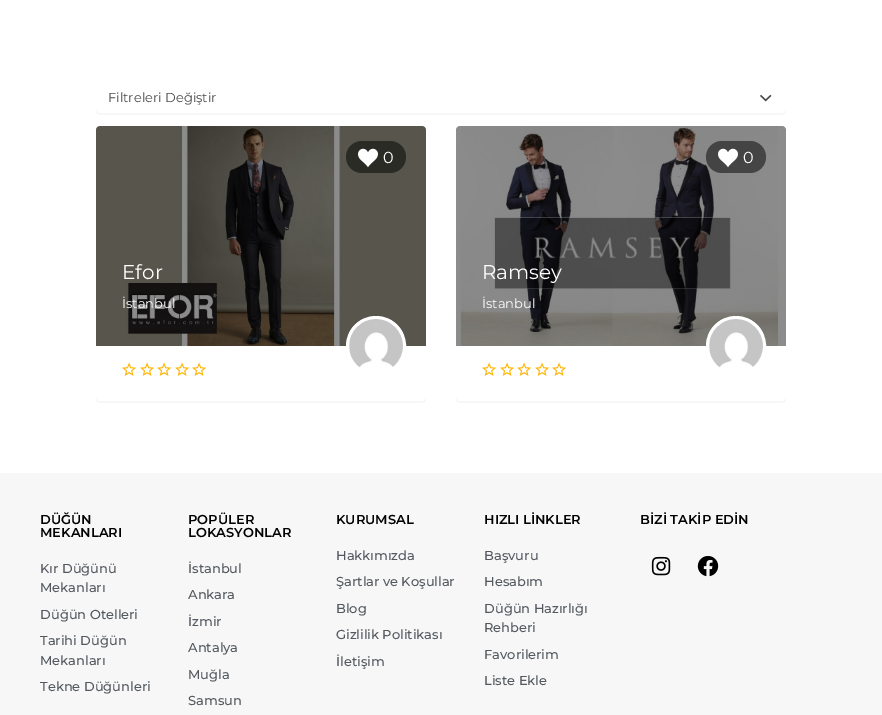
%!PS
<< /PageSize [882 715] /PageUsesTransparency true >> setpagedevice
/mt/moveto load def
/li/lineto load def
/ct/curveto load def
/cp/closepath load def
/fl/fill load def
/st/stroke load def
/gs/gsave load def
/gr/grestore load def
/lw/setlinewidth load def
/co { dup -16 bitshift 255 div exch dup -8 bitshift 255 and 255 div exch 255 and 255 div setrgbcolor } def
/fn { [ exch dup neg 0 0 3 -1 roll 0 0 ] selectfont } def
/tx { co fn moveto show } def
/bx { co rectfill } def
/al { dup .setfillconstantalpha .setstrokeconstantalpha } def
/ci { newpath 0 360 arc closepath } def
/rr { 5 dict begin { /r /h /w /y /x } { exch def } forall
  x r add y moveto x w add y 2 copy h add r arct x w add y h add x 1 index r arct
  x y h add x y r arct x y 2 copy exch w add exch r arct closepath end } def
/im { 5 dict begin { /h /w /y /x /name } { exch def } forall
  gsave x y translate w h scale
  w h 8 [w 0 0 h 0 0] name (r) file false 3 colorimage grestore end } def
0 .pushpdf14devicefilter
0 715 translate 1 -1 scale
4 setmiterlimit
0 0 882 715 16#FFFFFF bx
16#F7F7F7 co
96 109 mt 96 111 li 96 113 98 115 100 115 ct 782 115 li 784 115 786 113 786 111 ct 786 109 li 786 111 784 113 782 113 ct 100 113 li 98 113 96 111 96 109 ct cp fl
(media/1.raw) 760 94 12 8 im
96 397 mt 96 400 96 403 100 403 ct 422 403 li 426 403 426 400 426 397 ct 426 399 424 401 422 401 ct 100 401 li 98 401 96 399 96 397 ct cp fl
(media/3.raw) 96 126 330 220 im
0.45 al
16#000000 co
100 126 mt 422 126 li 424 126 426 128 426 130 ct 426 346 li 96 346 li 96 130 li 96 128 98 126 100 126 ct cp fl
1 al
16#2B2B26 co
346 141 60 32 16 rr fl
(media/2.raw) 358 148 20 20 im
(media/4.raw) 122 362 15 14 im
(media/4.raw) 140 362 15 14 im
(media/4.raw) 157 362 15 14 im
(media/4.raw) 175 362 15 14 im
(media/4.raw) 192 362 15 14 im
16#FFFFFF co
376 346 28.5 ci gs fl gr
3 lw
st
(media/5.raw) 349 319 54 49 im
16#F7F7F7 co
456 397 mt 456 400 456 403 460 403 ct 782 403 li 786 403 786 400 786 397 ct 786 399 784 401 782 401 ct 460 401 li 458 401 456 399 456 397 ct cp fl
(media/7.raw) 456 126 330 220 im
0.45 al
16#000000 co
460 126 mt 782 126 li 784 126 786 128 786 130 ct 786 346 li 456 346 li 456 130 li 456 128 458 126 460 126 ct cp fl
0.5 al
706 141 60 32 16 rr fl
1 al
(media/6.raw) 718 148 20 20 im
(media/4.raw) 482 362 15 14 im
(media/4.raw) 500 362 15 14 im
(media/4.raw) 517 362 15 14 im
(media/4.raw) 535 362 15 14 im
(media/4.raw) 552 362 15 14 im
16#FFFFFF co
736 346 28.5 ci gs fl gr
st
(media/8.raw) 709 319 54 49 im
0 473 882 242 16#F7F7F7 bx
(media/9.raw) 651 556 20 20 im
(media/10.raw) 697 556 22 21 im
(Filtreleri Değiştir) 108 102 /Montserrat-Regular 13 16#484848 tx
(0) 383 163 /Montserrat-Regular 16 16#FFFFFF tx
(Efor) 122 279 /Montserrat-Regular 20 16#FFFFFF tx
(İstanbul) 122 308 /Montserrat-Regular 13 16#FFFFFF tx
(0) 743 163 /Montserrat-Regular 16 16#FFFFFF tx
(Ramsey) 482 279 /Montserrat-Regular 20 16#FFFFFF tx
(İstanbul) 482 308 /Montserrat-Regular 13 16#FFFFFF tx
(DÜĞÜN) 40 524 /Montserrat-SemiBold 13 16#000000 tx
(MEKANLARI) 40 537 /Montserrat-SemiBold 13 16#000000 tx
(Kır Düğünü) 40 573 /Montserrat-Medium 13 16#54595F tx
(Mekanları) 40 592 /Montserrat-Medium 13 16#54595F tx
(Düğün Otelleri) 40 619 /Montserrat-Medium 13 16#54595F tx
(Tarihi Düğün) 40 645 /Montserrat-Medium 13 16#54595F tx
(Mekanları) 40 665 /Montserrat-Medium 13 16#54595F tx
(Tekne Düğünleri) 40 691 /Montserrat-Medium 13 16#54595F tx
(POPÜLER) 188 524 /Montserrat-SemiBold 13 16#000000 tx
(LOKASYONLAR) 188 537 /Montserrat-SemiBold 13 16#000000 tx
(İstanbul) 188 573 /Montserrat-Medium 13 16#54595F tx
(Ankara) 188 599 /Montserrat-Medium 13 16#54595F tx
(İzmir) 188 626 /Montserrat-Medium 13 16#54595F tx
(Antalya) 188 652 /Montserrat-Medium 13 16#54595F tx
(Muğla) 188 679 /Montserrat-Medium 13 16#54595F tx
(Samsun) 188 705 /Montserrat-Medium 13 16#54595F tx
(KURUMSAL) 336 524 /Montserrat-SemiBold 13 16#000000 tx
(Hakkımızda) 336 560 /Montserrat-Medium 13 16#54595F tx
(Şartlar ve Koşullar) 336 586 /Montserrat-Medium 13 16#54595F tx
(Blog) 336 613 /Montserrat-Medium 13 16#54595F tx
(Gizlilik Politikası) 336 639 /Montserrat-Medium 13 16#54595F tx
(İletişim) 336 666 /Montserrat-Medium 13 16#54595F tx
(HIZLI LİNKLER) 484 524 /Montserrat-SemiBold 13 16#000000 tx
(Başvuru) 484 560 /Montserrat-Medium 13 16#54595F tx
(Hesabım) 484 586 /Montserrat-Medium 13 16#54595F tx
(Düğün Hazırlığı) 484 613 /Montserrat-Medium 13 16#54595F tx
(Rehberi) 484 632 /Montserrat-Medium 13 16#54595F tx
(Favorilerim) 484 659 /Montserrat-Medium 13 16#54595F tx
(Liste Ekle) 484 685 /Montserrat-Medium 13 16#54595F tx
(BİZİ TAKİP EDİN) 640 524 /Montserrat-SemiBold 13 16#000000 tx
.poppdf14devicefilter showpage
